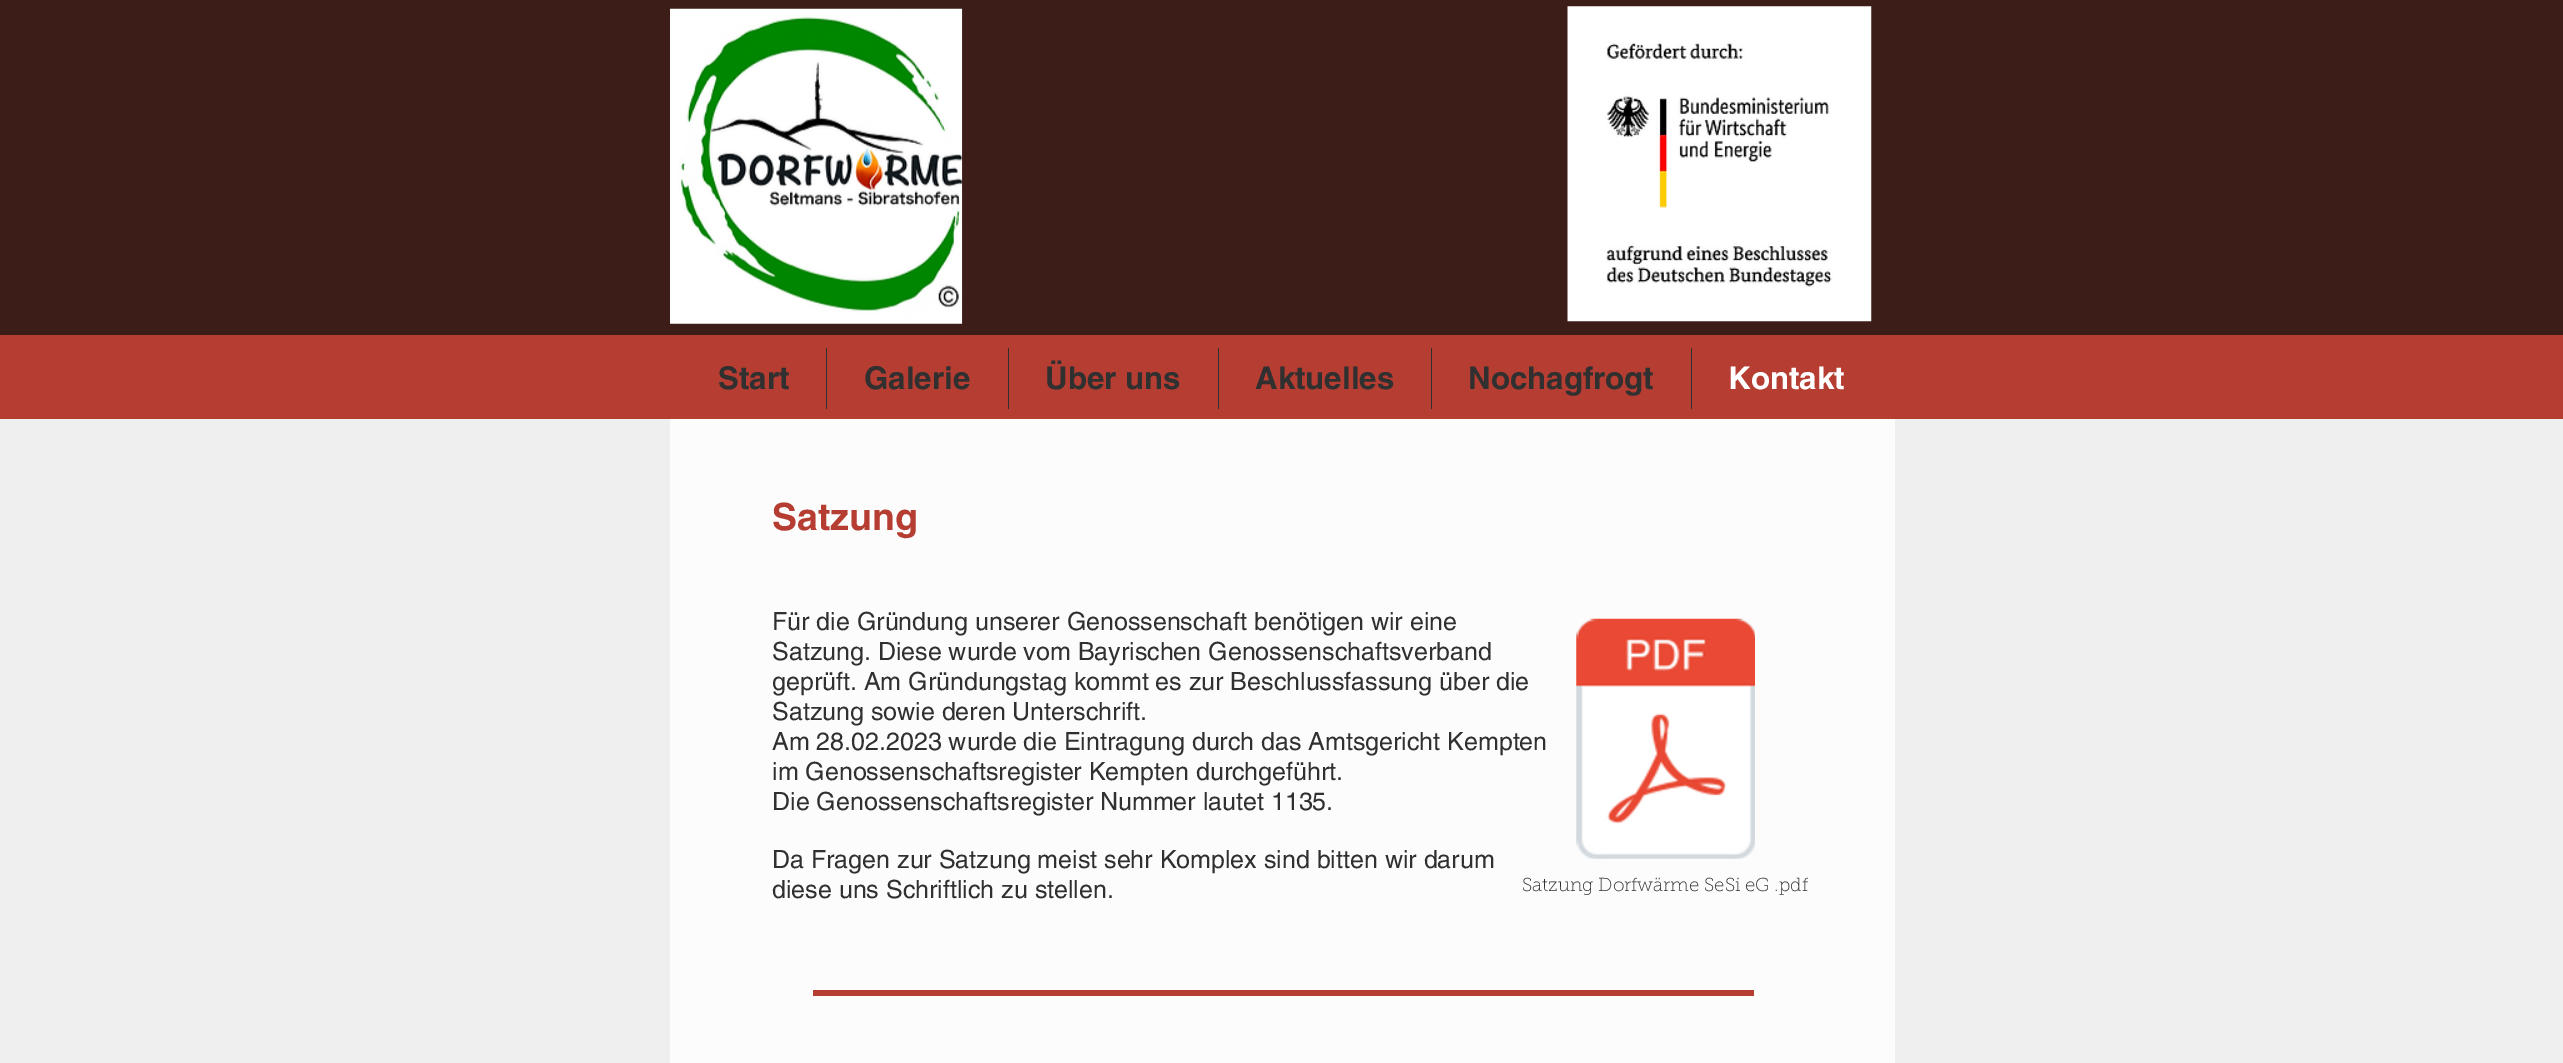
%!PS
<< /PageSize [2563 1063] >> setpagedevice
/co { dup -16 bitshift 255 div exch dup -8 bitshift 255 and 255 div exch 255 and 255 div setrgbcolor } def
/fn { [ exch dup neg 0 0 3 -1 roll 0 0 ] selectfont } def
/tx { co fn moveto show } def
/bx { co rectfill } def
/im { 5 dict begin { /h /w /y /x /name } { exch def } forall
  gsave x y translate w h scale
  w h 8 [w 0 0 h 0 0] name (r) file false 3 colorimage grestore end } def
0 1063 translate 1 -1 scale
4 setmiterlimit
0 0 2563 1063 16#EFEFEF bx
0 335 2563 84 16#B63D32 bx
0 0 2563 335 16#3C1D17 bx
(media/1.raw) 670 8 293 316 im
(media/2.raw) 1567 6 305 316 im
826 348 1 61 16#303030 bx
1008 348 1 61 16#303030 bx
1218 348 1 61 16#303030 bx
1431 348 1 61 16#303030 bx
1691 348 1 61 16#303030 bx
670 419 1225 644 16#FCFCFC bx
(media/3.raw) 1576 618 179 241 im
813 990 941 6 16#B63D32 bx
(Start) 718 389 /helvetica-Bold 31.25 16#303030 tx
(Galerie) 864 389 /helvetica-Bold 31.25 16#303030 tx
(Über uns) 1045 389 /helvetica-Bold 31.25 16#303030 tx
(Aktuelles) 1255 389 /helvetica-Bold 31.25 16#303030 tx
(Nochagfrogt) 1468 389 /helvetica-Bold 31.25 16#303030 tx
(Kontakt) 1728 389 /helvetica-Bold 31.25 16#FFFFFF tx
(Satzung) 772 530 /helvetica-Bold 37.5 16#B63D32 tx
(Für die Gründung unserer Genossenschaft benötigen wir eine) 772 630 /helvetica-Regular 25 16#303030 tx
(Satzung. Diese wurde vom Bayrischen Genossenschaftsverband) 772 660 /helvetica-Regular 25 16#303030 tx
(geprüft. Am Gründungstag kommt es zur Beschlussfassung über die) 772 690 /helvetica-Regular 25 16#303030 tx
(Satzung sowie deren Unterschrift.) 772 720 /helvetica-Regular 25 16#303030 tx
(Am 28.02.2023 wurde die Eintragung durch das Amtsgericht Kempten) 772 750 /helvetica-Regular 25 16#303030 tx
(im Genossenschaftsregister Kempten durchgeführt.) 772 780 /helvetica-Regular 25 16#303030 tx
(Die Genossenschaftsregister Nummer lautet 1135.) 772 810 /helvetica-Regular 25 16#303030 tx
(Da Fragen zur Satzung meist sehr Komplex sind bitten wir darum) 772 868 /helvetica-Regular 25 16#303030 tx
(diese uns Schriftlich zu stellen.) 772 898 /helvetica-Regular 25 16#303030 tx
(Satzung Dorfwärme SeSi eG .pdf) 1522 891 /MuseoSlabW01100-Thin 18.75 16#303030 tx
showpage
